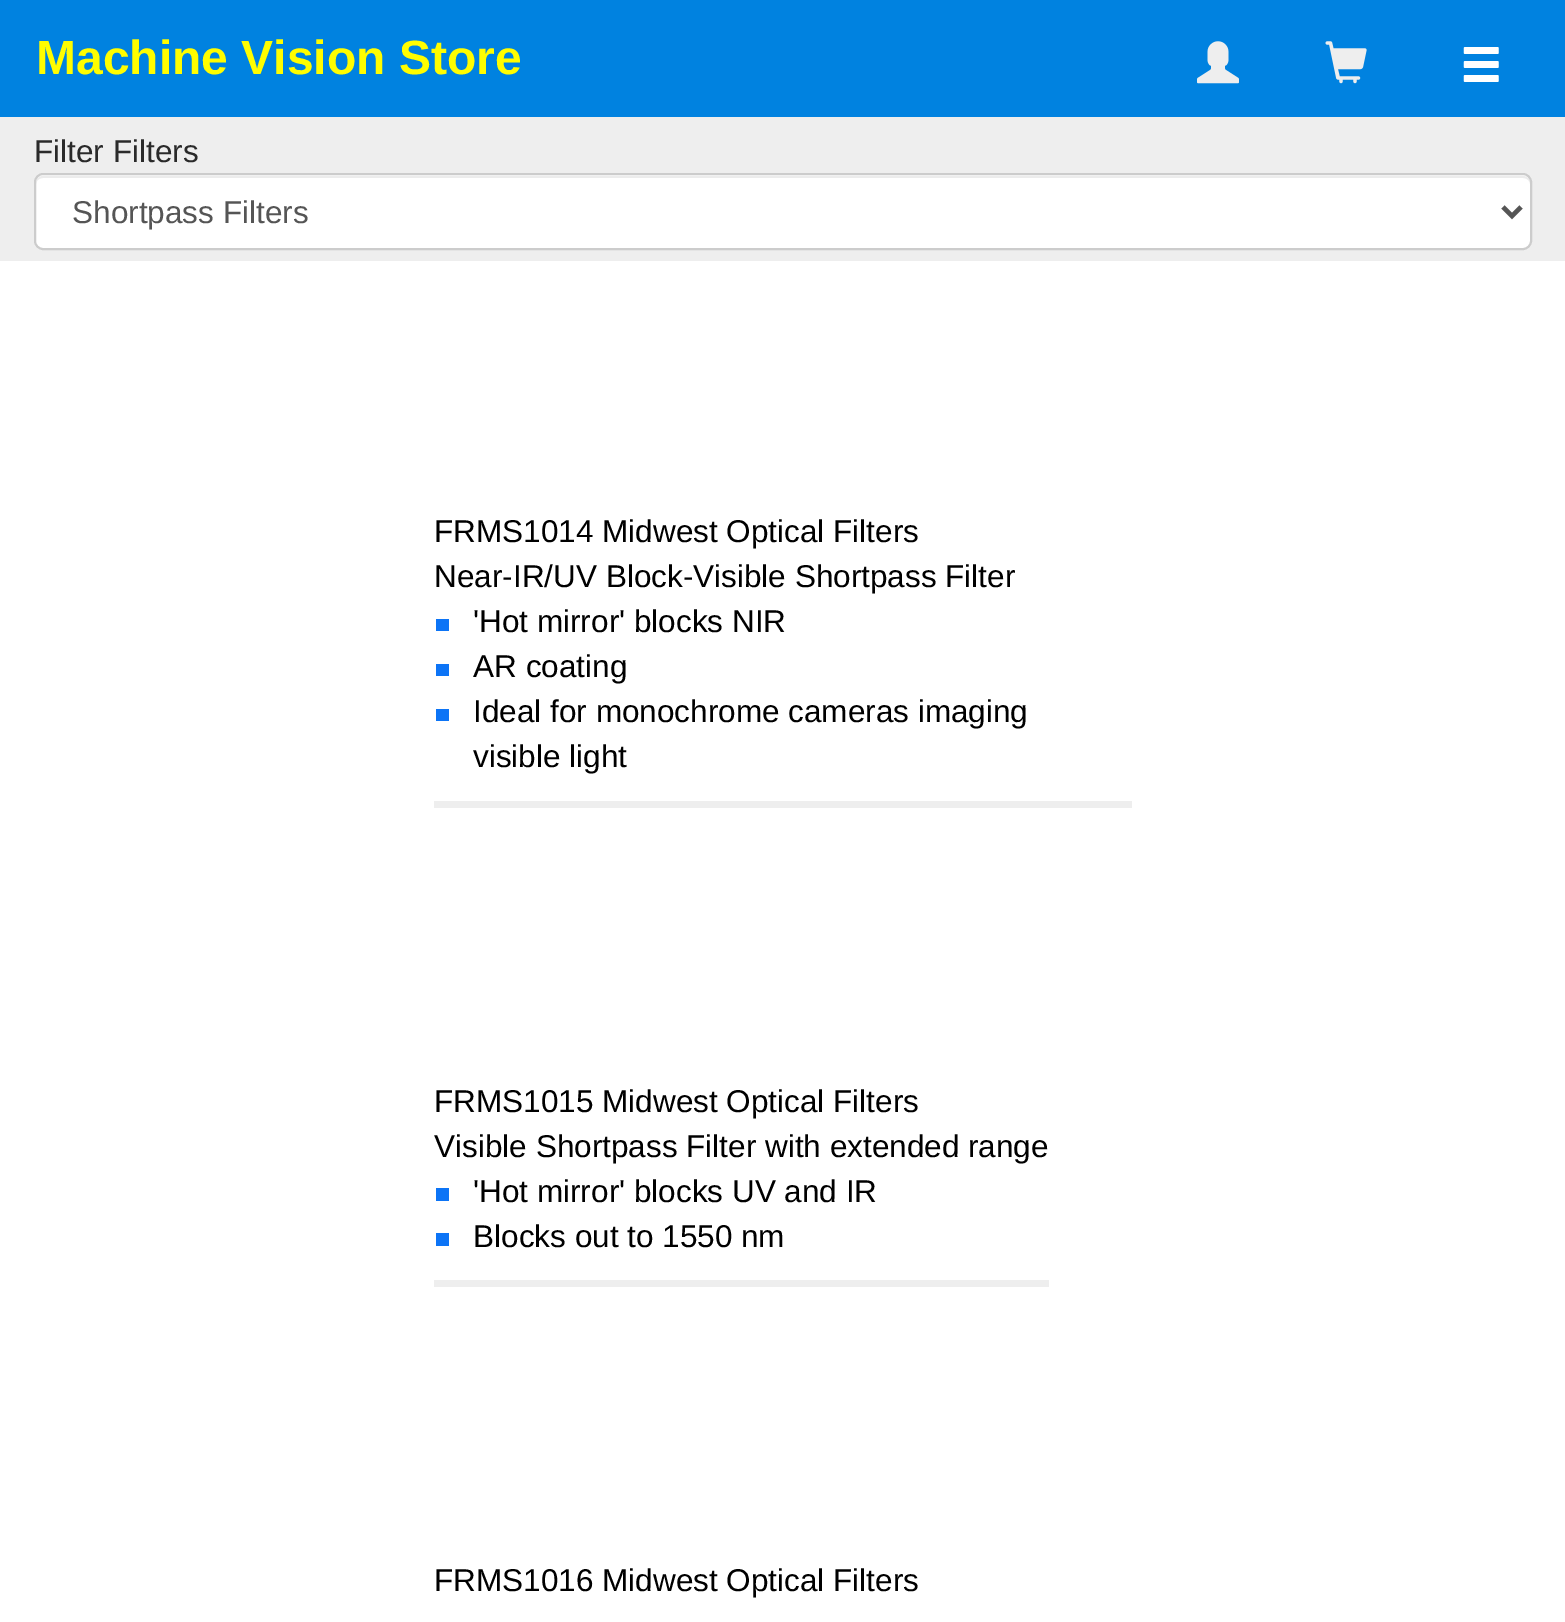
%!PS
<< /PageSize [1565 1622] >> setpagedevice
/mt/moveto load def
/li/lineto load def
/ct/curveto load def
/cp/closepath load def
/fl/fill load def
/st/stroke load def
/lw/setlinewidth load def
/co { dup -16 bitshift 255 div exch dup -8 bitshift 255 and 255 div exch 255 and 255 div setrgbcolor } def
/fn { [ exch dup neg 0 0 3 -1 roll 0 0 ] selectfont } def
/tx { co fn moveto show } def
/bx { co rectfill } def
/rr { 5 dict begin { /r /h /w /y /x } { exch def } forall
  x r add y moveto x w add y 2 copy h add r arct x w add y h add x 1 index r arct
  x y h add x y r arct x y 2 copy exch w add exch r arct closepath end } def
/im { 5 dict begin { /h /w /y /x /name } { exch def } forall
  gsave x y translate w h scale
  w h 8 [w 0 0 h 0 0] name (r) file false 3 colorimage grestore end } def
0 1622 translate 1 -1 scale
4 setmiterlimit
0 0 1565 1622 16#0082E0 bx
(media/1.raw) 1197 41 42 43 im
(media/2.raw) 1325 41 42 43 im
(media/3.raw) 1463 47 36 35 im
0 261 1565 1361 16#FFFFFF bx
0 117 1565 144 16#EEEEEE bx
16#FFFFFF co
34 173 1498 77 9 rr fl
16#ECECEC co
43 178 mt 1523 178 li 1527 178 1530 181 1530 184 ct 1530 180 1528 176 1523 176 ct 43 176 li 38 176 36 180 36 184 ct 36 181 39 178 43 178 ct cp fl
16#CCCCCC co
2 lw
35 174 1496 75 8 rr st
16#555555 co
4.5 lw
1503 207 mt 1512 216 li 1521 207 li st
434 801 698 7 16#EEEEEE bx
436 619 13 12 16#0C74F6 bx
436 664 13 12 16#0C74F6 bx
436 709 13 12 16#0C74F6 bx
434 1280 615 7 16#EEEEEE bx
436 1188 13 13 16#0C74F6 bx
436 1233 13 13 16#0C74F6 bx
(Machine Vision Store) 36 74 /LiberationSans-Bold 48 16#FFFD00 tx
(Filter Filters) 34 162 /LiberationSans-Regular 31.5 16#2A2A2A tx
(Shortpass Filters) 72 223 /LiberationSans-Regular 31.5 16#555555 tx
(FRMS1014 Midwest Optical Filters) 434 542 /LiberationSans-Regular 31.5 16#000000 tx
(Near-IR/UV Block-Visible Shortpass Filter) 434 587 /LiberationSans-Regular 31.5 16#000000 tx
('Hot mirror' blocks NIR) 473 632 /LiberationSans-Regular 31.5 16#000000 tx
(AR coating) 473 677 /LiberationSans-Regular 31.5 16#000000 tx
(Ideal for monochrome cameras imaging) 473 722 /LiberationSans-Regular 31.5 16#000000 tx
(visible light) 473 767 /LiberationSans-Regular 31.5 16#000000 tx
(FRMS1015 Midwest Optical Filters) 434 1112 /LiberationSans-Regular 31.5 16#000000 tx
(Visible Shortpass Filter with extended range) 434 1157 /LiberationSans-Regular 31.5 16#000000 tx
('Hot mirror' blocks UV and IR) 473 1202 /LiberationSans-Regular 31.5 16#000000 tx
(Blocks out to 1550 nm) 473 1247 /LiberationSans-Regular 31.5 16#000000 tx
(FRMS1016 Midwest Optical Filters) 434 1591 /LiberationSans-Regular 31.5 16#000000 tx
showpage
